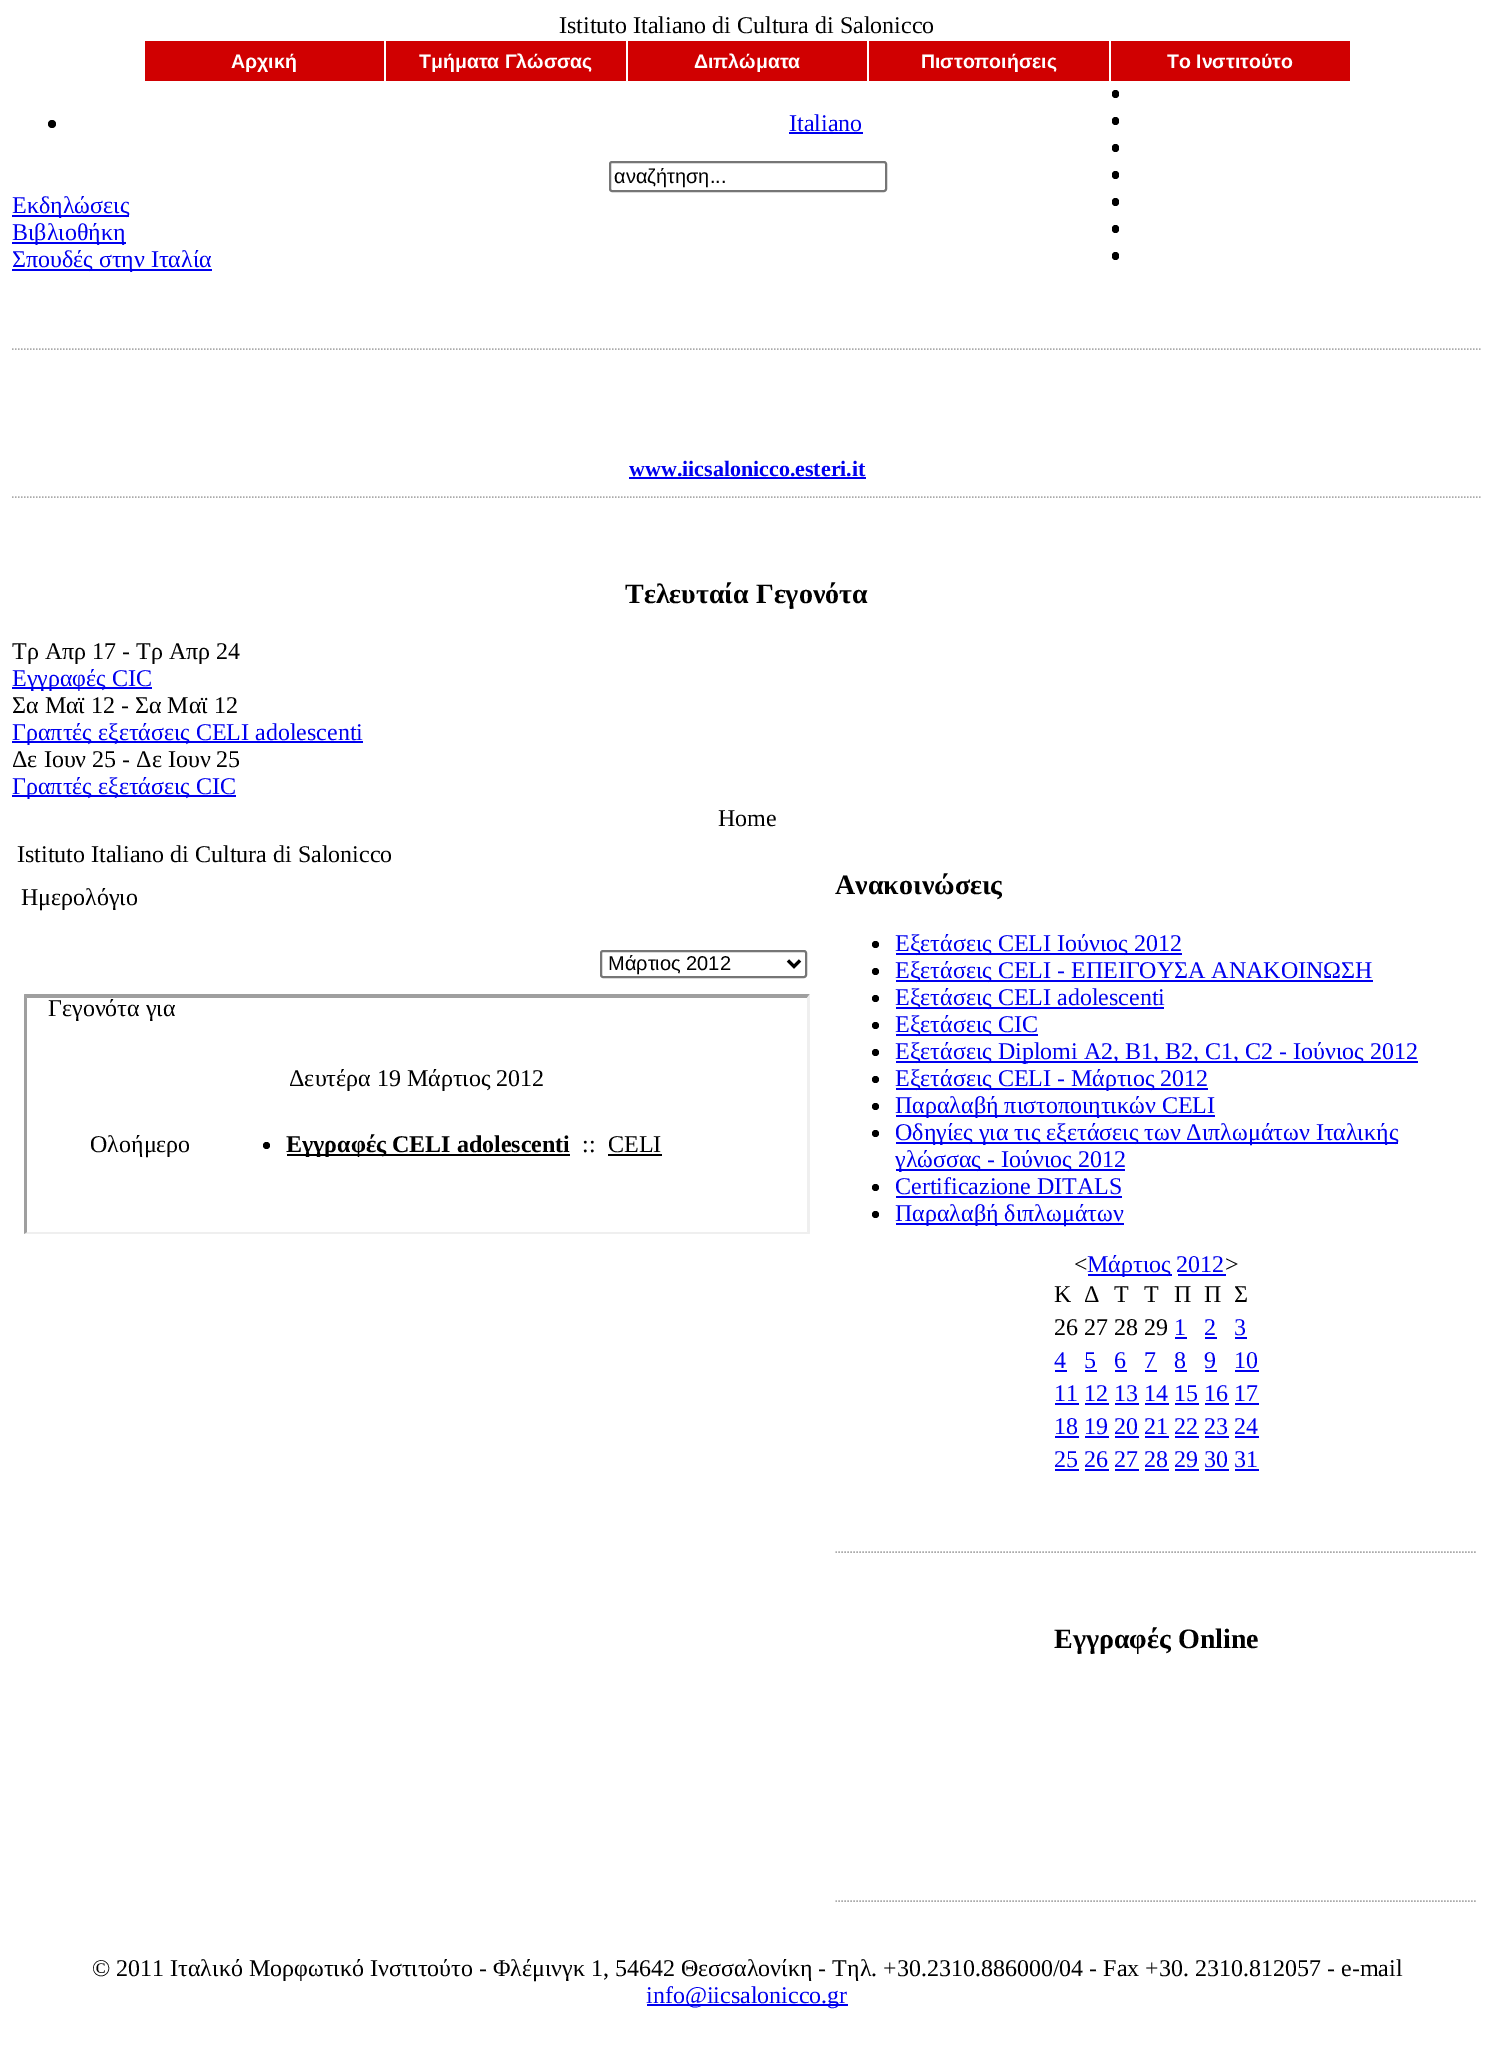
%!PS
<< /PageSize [1494 2061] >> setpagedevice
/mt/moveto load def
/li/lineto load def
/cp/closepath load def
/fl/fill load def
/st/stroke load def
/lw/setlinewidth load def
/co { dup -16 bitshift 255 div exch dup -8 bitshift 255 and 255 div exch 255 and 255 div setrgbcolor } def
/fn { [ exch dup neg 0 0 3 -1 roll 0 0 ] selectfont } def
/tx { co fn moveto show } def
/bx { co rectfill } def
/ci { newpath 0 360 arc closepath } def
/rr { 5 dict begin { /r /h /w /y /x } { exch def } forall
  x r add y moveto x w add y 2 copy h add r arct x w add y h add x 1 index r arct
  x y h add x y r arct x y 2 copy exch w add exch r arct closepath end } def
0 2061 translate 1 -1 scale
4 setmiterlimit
0 0 1494 2061 16#FFFFFF bx
16#000000 co
1112 90 7 8 3.5 rr fl
1112 117 7 8 3.5 rr fl
1112 144 7 8 3.5 rr fl
1112 171 7 8 3.5 rr fl
1112 198 7 8 3.5 rr fl
1112 225 7 8 3.5 rr fl
1112 252 7 8 3.5 rr fl
145 41 239 40 16#D00001 bx
386 41 240 40 16#D00001 bx
628 41 239 40 16#D00001 bx
869 41 240 40 16#D00001 bx
1111 41 239 40 16#D00001 bx
16#000000 co
52 124 4 ci fl
789 132 74 2 16#0000EE bx
16#767676 co
2 lw
610 162 276 29 2 rr st
12 215 117 2 16#0000EE bx
12 242 114 2 16#0000EE bx
12 269 200 2 16#0000EE bx
16#AAAAAA co
1.5 lw
[1.5 1.5] 0 setdash
12 349 mt 1482 349 li st
12 497 mt 1482 497 li st
629 477 237 2 16#0000EE bx
12 687 140 2 16#0000EE bx
12 741 351 2 16#0000EE bx
12 795 224 2 16#0000EE bx
16#767676 co
2 lw
[] 0 setdash
601 951 205 26 2 rr st
16#000000 co
3 lw
788 960.5 mt 794 966.5 li 800 960.5 li st
16#9F9F9F co
24 994 mt 810 994 li 807 998 li 27 998 li cp fl
16#EFEFEF co
810 994 mt 810 1234 li 807 1232 li 807 998 li cp fl
810 1234 mt 24 1234 li 27 1232 li 807 1232 li cp fl
16#9F9F9F co
24 1234 mt 24 994 li 27 998 li 27 1232 li cp fl
16#000000 co
266.5 1145.5 3.5 ci fl
287 1154 283 2 16#000000 bx
608 1154 54 2 16#000000 bx
875.5 944.5 3.5 ci fl
896 953 286 2 16#0000EE bx
16#000000 co
875.5 971.5 3.5 ci fl
896 980 477 2 16#0000EE bx
16#000000 co
875.5 998.5 3.5 ci fl
896 1007 268 2 16#0000EE bx
16#000000 co
875.5 1025.5 3.5 ci fl
896 1034 142 2 16#0000EE bx
16#000000 co
875.5 1052.5 3.5 ci fl
896 1061 522 2 16#0000EE bx
16#000000 co
875.5 1079.5 3.5 ci fl
896 1088 312 2 16#0000EE bx
16#000000 co
875.5 1106.5 3.5 ci fl
896 1115 319 2 16#0000EE bx
16#000000 co
875.5 1133.5 3.5 ci fl
896 1142 502 2 16#0000EE bx
896 1169 229 2 16#0000EE bx
16#000000 co
875.5 1187.5 3.5 ci fl
896 1196 226 2 16#0000EE bx
16#000000 co
875.5 1214.5 3.5 ci fl
896 1223 228 2 16#0000EE bx
1088 1274 84 2 16#0000EE bx
1178 1274 48 2 16#0000EE bx
1175 1337 12 2 16#0000EE bx
1205 1337 12 2 16#0000EE bx
1235 1337 12 2 16#0000EE bx
1055 1370 12 2 16#0000EE bx
1085 1370 12 2 16#0000EE bx
1115 1370 12 2 16#0000EE bx
1145 1370 12 2 16#0000EE bx
1175 1370 12 2 16#0000EE bx
1205 1370 12 2 16#0000EE bx
1235 1370 24 2 16#0000EE bx
1055 1403 24 2 16#0000EE bx
1085 1403 24 2 16#0000EE bx
1115 1403 24 2 16#0000EE bx
1145 1403 24 2 16#0000EE bx
1175 1403 24 2 16#0000EE bx
1205 1403 24 2 16#0000EE bx
1235 1403 24 2 16#0000EE bx
1055 1436 24 2 16#0000EE bx
1085 1436 24 2 16#0000EE bx
1115 1436 24 2 16#0000EE bx
1145 1436 24 2 16#0000EE bx
1175 1436 24 2 16#0000EE bx
1205 1436 24 2 16#0000EE bx
1235 1436 24 2 16#0000EE bx
1055 1469 24 2 16#0000EE bx
1085 1469 24 2 16#0000EE bx
1115 1469 24 2 16#0000EE bx
1145 1469 24 2 16#0000EE bx
1175 1469 24 2 16#0000EE bx
1205 1469 24 2 16#0000EE bx
1235 1469 24 2 16#0000EE bx
16#AAAAAA co
1.5 lw
[1.5 1.5] 0 setdash
835.5 1552 mt 1477.5 1552 li st
835.5 1901 mt 1477.5 1901 li st
647 2004 201 2 16#0000EE bx
(Istituto Italiano di Cultura di Salonicco) 559 33 /LiberationSerif-Regular 24 16#000000 tx
(Αρχική) 231 68 /LiberationSans-Bold 19.5 16#FFFFFF tx
(Τμήματα Γλώσσας) 419 68 /LiberationSans-Bold 19.5 16#FFFFFF tx
(Διπλώματα) 694 68 /LiberationSans-Bold 19.5 16#FFFFFF tx
(Πιστοποιήσεις) 921 68 /LiberationSans-Bold 19.5 16#FFFFFF tx
(Το Ινστιτούτο) 1167 68 /LiberationSans-Bold 19.5 16#FFFFFF tx
(Italianο) 789 131 /LiberationSerif-Regular 24 16#0000EE tx
(αναζήτηση...) 614 183 /LiberationSans-Regular 20 16#000000 tx
(Εκδηλώσεις) 12 213 /LiberationSerif-Regular 24 16#0000EE tx
(Βιβλιοθήκη) 12 240 /LiberationSerif-Regular 24 16#0000EE tx
(Σπουδές στην Ιταλία) 12 267 /LiberationSerif-Regular 24 16#0000EE tx
(www.iicsalonicco.esteri.it) 629 476 /LiberationSerif-Bold 22 16#0000EE tx
(Τελευταία Γεγονότα) 625 603 /LiberationSerif-Bold 28 16#000000 tx
(Τρ Απρ 17 - Τρ Απρ 24) 12 659 /LiberationSerif-Regular 24 16#000000 tx
(Εγγραφές CIC) 12 686 /LiberationSerif-Regular 24 16#0000EE tx
(Σα Μαϊ 12 - Σα Μαϊ 12) 12 713 /LiberationSerif-Regular 24 16#000000 tx
(Γραπτές εξετάσεις CELI adolescenti) 12 740 /LiberationSerif-Regular 24 16#0000EE tx
(Δε Ιουν 25 - Δε Ιουν 25) 12 767 /LiberationSerif-Regular 24 16#000000 tx
(Γραπτές εξετάσεις CIC) 12 794 /LiberationSerif-Regular 24 16#0000EE tx
(Home) 718 826 /LiberationSerif-Regular 24 16#000000 tx
(Istituto Italiano di Cultura di Salonicco) 17 862 /LiberationSerif-Regular 24 16#000000 tx
(Ημερολόγιο) 21 905 /LiberationSerif-Regular 24 16#000000 tx
(Μάρτιος 2012) 608 970 /LiberationSans-Regular 20 16#000000 tx
(Γεγονότα για) 48 1016 /LiberationSerif-Regular 24 16#000000 tx
(Δευτέρα 19 Μάρτιος 2012) 289 1086 /LiberationSerif-Regular 24 16#000000 tx
(Ολοήμερο) 90 1152 /LiberationSerif-Regular 24 16#000000 tx
(Εγγραφές CELI adolescenti) 286 1152 /LiberationSerif-Bold 24 16#000000 tx
(::) 582 1152 /LiberationSerif-Regular 24 16#000000 tx
(CELI) 608 1152 /LiberationSerif-Regular 24 16#000000 tx
(Ανακοινώσεις) 835 894 /LiberationSerif-Bold 28 16#000000 tx
(Εξετάσεις CELI Ιούνιος 2012) 895 951 /LiberationSerif-Regular 24 16#0000EE tx
(Εξετάσεις CELI - ΕΠΕΙΓΟΥΣΑ ΑΝΑΚΟΙΝΩΣΗ) 895 978 /LiberationSerif-Regular 24 16#0000EE tx
(Εξετάσεις CELI adolescenti) 895 1005 /LiberationSerif-Regular 24 16#0000EE tx
(Εξετάσεις CIC) 895 1032 /LiberationSerif-Regular 24 16#0000EE tx
(Εξετάσεις Diplomi A2, B1, B2, C1, C2 - Ιούνιος 2012) 895 1059 /LiberationSerif-Regular 24 16#0000EE tx
(Εξετάσεις CELI - Μάρτιος 2012) 895 1086 /LiberationSerif-Regular 24 16#0000EE tx
(Παραλαβή πιστοποιητικών CELI) 895 1113 /LiberationSerif-Regular 24 16#0000EE tx
(Οδηγίες για τις εξετάσεις των Διπλωμάτων Ιταλικής) 895 1140 /LiberationSerif-Regular 24 16#0000EE tx
(γλώσσας - Ιούνιος 2012) 895 1167 /LiberationSerif-Regular 24 16#0000EE tx
(Certificazione DITALS) 895 1194 /LiberationSerif-Regular 24 16#0000EE tx
(Παραλαβή διπλωμάτων) 895 1221 /LiberationSerif-Regular 24 16#0000EE tx
(<) 1074 1272 /LiberationSerif-Regular 24 16#000000 tx
(Μάρτιος 2012) 1087 1272 /LiberationSerif-Regular 24 16#0000EE tx
(>) 1225 1272 /LiberationSerif-Regular 24 16#000000 tx
(Κ) 1054 1302 /LiberationSerif-Regular 24 16#000000 tx
(Δ) 1084 1302 /LiberationSerif-Regular 24 16#000000 tx
(Τ) 1114 1302 /LiberationSerif-Regular 24 16#000000 tx
(Τ) 1144 1302 /LiberationSerif-Regular 24 16#000000 tx
(Π) 1174 1302 /LiberationSerif-Regular 24 16#000000 tx
(Π) 1204 1302 /LiberationSerif-Regular 24 16#000000 tx
(Σ) 1234 1302 /LiberationSerif-Regular 24 16#000000 tx
(26 27 28 29) 1054 1335 /LiberationSerif-Regular 24 16#000000 tx
(1) 1174 1335 /LiberationSerif-Regular 24 16#0000EE tx
(2) 1204 1335 /LiberationSerif-Regular 24 16#0000EE tx
(3) 1234 1335 /LiberationSerif-Regular 24 16#0000EE tx
(4) 1054 1368 /LiberationSerif-Regular 24 16#0000EE tx
(5) 1084 1368 /LiberationSerif-Regular 24 16#0000EE tx
(6) 1114 1368 /LiberationSerif-Regular 24 16#0000EE tx
(7) 1144 1368 /LiberationSerif-Regular 24 16#0000EE tx
(8) 1174 1368 /LiberationSerif-Regular 24 16#0000EE tx
(9) 1204 1368 /LiberationSerif-Regular 24 16#0000EE tx
(10) 1234 1368 /LiberationSerif-Regular 24 16#0000EE tx
(11 12 13 14 15 16 17) 1054 1401 /LiberationSerif-Regular 24 16#0000EE tx
(18 19 20 21 22 23 24) 1054 1434 /LiberationSerif-Regular 24 16#0000EE tx
(25 26 27 28 29 30 31) 1054 1467 /LiberationSerif-Regular 24 16#0000EE tx
(Εγγραφές Online) 1054 1648 /LiberationSerif-Bold 28 16#000000 tx
(© 2011 Ιταλικό Μορφωτικό Ινστιτούτο - Φλέμινγκ 1, 54642 Θεσσαλονίκη - Τηλ. +30.2310.886000/04 - Fax +30. 2310.812057 - e-mail) 92 1976 /LiberationSerif-Regular 24 16#000000 tx
(info@iicsalonicco.gr) 646 2003 /LiberationSerif-Regular 24 16#0000EE tx
showpage
